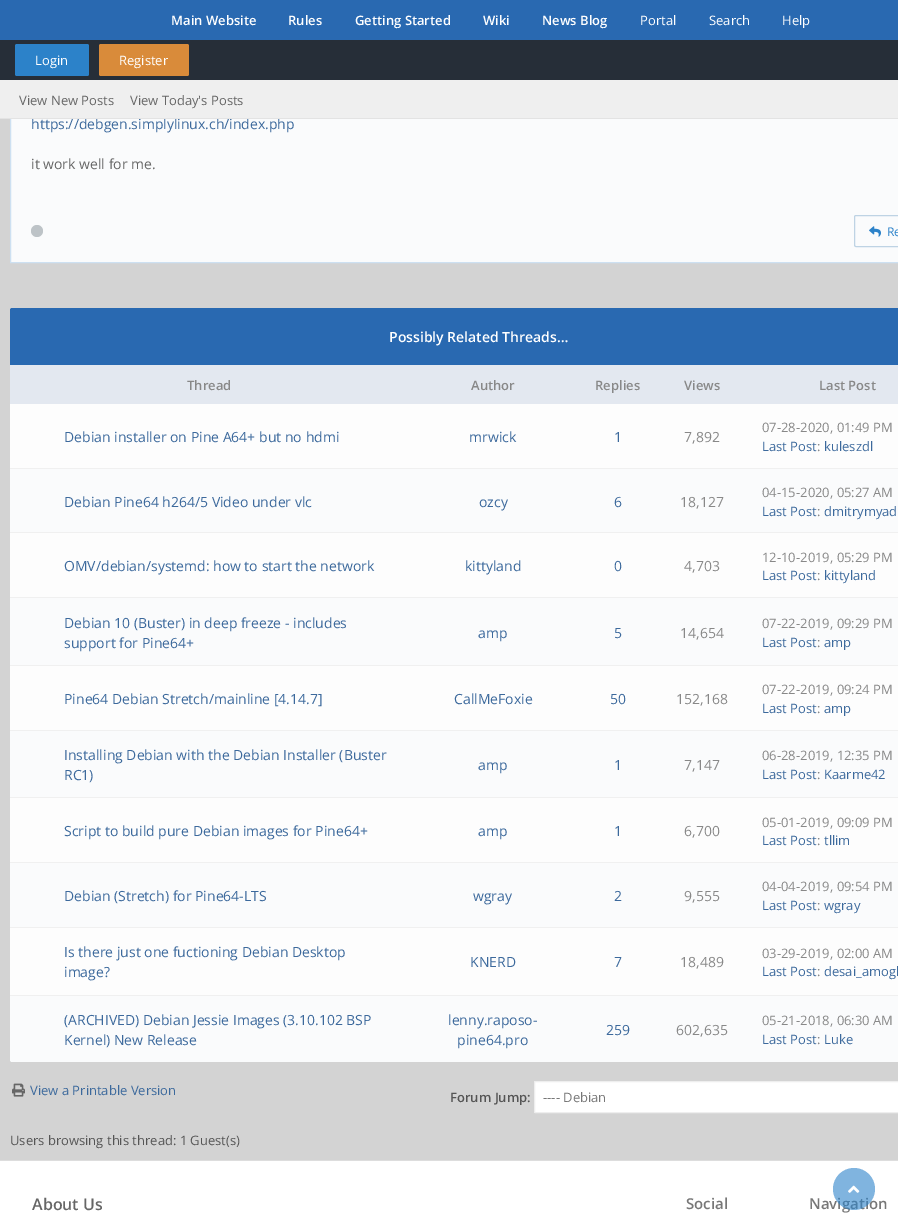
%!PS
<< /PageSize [898 1227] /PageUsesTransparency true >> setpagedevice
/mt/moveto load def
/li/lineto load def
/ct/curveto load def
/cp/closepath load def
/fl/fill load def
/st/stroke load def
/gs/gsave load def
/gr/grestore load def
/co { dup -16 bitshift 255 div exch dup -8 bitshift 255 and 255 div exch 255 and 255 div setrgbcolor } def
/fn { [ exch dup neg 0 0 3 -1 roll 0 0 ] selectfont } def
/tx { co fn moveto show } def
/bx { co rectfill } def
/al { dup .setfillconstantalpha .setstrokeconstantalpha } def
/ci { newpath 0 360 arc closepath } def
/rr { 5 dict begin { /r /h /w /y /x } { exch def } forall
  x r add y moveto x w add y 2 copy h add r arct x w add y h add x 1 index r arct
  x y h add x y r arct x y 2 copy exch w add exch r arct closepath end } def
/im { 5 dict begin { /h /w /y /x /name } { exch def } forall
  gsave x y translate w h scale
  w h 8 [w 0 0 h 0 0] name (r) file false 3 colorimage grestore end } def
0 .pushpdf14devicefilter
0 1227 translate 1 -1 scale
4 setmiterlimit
0 0 898 1227 16#D3D3D3 bx
11 119 887 143 16#FAFBFC bx
16#CDE0F1 co
10.5 -.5 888 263 rectstroke
0 0 898 40 16#2969B1 bx
0 40 898 40 16#262E38 bx
16#2C82C9 co
15 44 74 32 2 rr fl
16#D98B3A co
99 44 90 32 2 rr fl
0 80 898 38 16#EFEFEF bx
16#BDC3C7 co
37 231 6 ci fl
16#BED3E4 co
854.5 215.5 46 31 1.5 rr st
(media/1.raw) 869 226 12 11 im
16#2969B1 co
12 308 mt 898 308 li 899 308 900 309 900 310 ct 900 365 li 10 365 li 10 310 li 10 309 11 308 12 308 ct cp fl
10 365 888 39 16#E3E8F0 bx
10 404 888 64 16#FDFDFD bx
10 468 888 1 16#F0F0F0 bx
10 469 888 63 16#FAFBFC bx
10 532 888 1 16#F0F0F0 bx
10 533 888 64 16#FDFDFD bx
10 597 888 1 16#F0F0F0 bx
10 598 888 67 16#FAFBFC bx
10 665 888 1 16#F0F0F0 bx
10 666 888 64 16#FDFDFD bx
10 730 888 1 16#F0F0F0 bx
10 731 888 66 16#FAFBFC bx
10 797 888 1 16#F0F0F0 bx
10 798 888 64 16#FDFDFD bx
10 862 888 1 16#F0F0F0 bx
10 863 888 64 16#FAFBFC bx
10 927 888 1 16#F0F0F0 bx
10 928 888 67 16#FDFDFD bx
10 995 888 1 16#F0F0F0 bx
16#FAFBFC co
10 996 mt 48 996 li 48 1062 li 12 1062 li 11 1062 10 1061 10 1060 ct cp fl
48 996 850 66 16#FAFBFC bx
(media/2.raw) 12 1083 13 14 im
16#FFFFFF co
534.5 1081.5 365 31 .5 rr gs fl gr
16#EEEEEE co
st
0 1161 898 66 16#FFFFFF bx
0 1160 898 1 16#DDDDDD bx
(Main Website) 171 25 /OpenSans-SemiBold 13 16#FFFFFF tx
(Rules) 288 25 /OpenSans-SemiBold 13 16#FFFFFF tx
(Getting Started) 355 25 /OpenSans-SemiBold 13 16#FFFFFF tx
(Wiki) 483 25 /OpenSans-SemiBold 13 16#FFFFFF tx
(News Blog) 542 25 /OpenSans-SemiBold 13 16#FFFFFF tx
(Portal) 640 25 /OpenSans-Regular 13 16#FFFFFF tx
(Search) 709 25 /OpenSans-Regular 13 16#FFFFFF tx
(Help) 782 25 /OpenSans-Regular 13 16#FFFFFF tx
(Login) 35 65 /OpenSans-Regular 13 16#FFFFFF tx
(Register) 119 65 /OpenSans-Regular 13 16#FFFFFF tx
(View New Posts) 19 105 /OpenSans-Regular 13 16#666666 tx
(View Today's Posts) 130 105 /OpenSans-Regular 13 16#666666 tx
(https://debgen.simplylinux.ch/index.php) 31 129 /OpenSans-Regular 14 16#3C699C tx
0 118 898 1 16#E3E3E3 bx
(it work well for me.) 31 169 /OpenSans-Regular 14 16#666666 tx
(Re) 887 236 /OpenSans-Regular 12 16#2C82C9 tx
(Possibly Related Threads…) 389 342 /OpenSans-SemiBold 14 16#FFFFFF tx
(Thread) 187 390 /OpenSans-SemiBold 13 16#888888 tx
(Author) 471 390 /OpenSans-SemiBold 13 16#888888 tx
(Replies) 595 390 /OpenSans-SemiBold 13 16#888888 tx
(Views) 684 390 /OpenSans-SemiBold 13 16#888888 tx
(Last Post) 819 390 /OpenSans-SemiBold 13 16#888888 tx
(Debian installer on Pine A64+ but no hdmi) 64 442 /OpenSans-Regular 14 16#3C699C tx
(mrwick) 469 442 /OpenSans-Regular 14 16#3C699C tx
(1) 614 442 /OpenSans-Regular 14 16#3C699C tx
(7,892) 684 442 /OpenSans-Regular 14 16#888888 tx
(07-28-2020, 01:49 PM) 762 432 /OpenSans-Regular 13 16#888888 tx
(Last Post) 762 451 /OpenSans-Regular 13 16#3C699C tx
(:) 817 451 /OpenSans-Regular 13 16#888888 tx
(kuleszdl) 824 451 /OpenSans-Regular 13 16#3C699C tx
(Debian Pine64 h264/5 Video under vlc) 64 507 /OpenSans-Regular 14 16#3C699C tx
(ozcy) 479 507 /OpenSans-Regular 14 16#3C699C tx
(6) 614 507 /OpenSans-Regular 14 16#3C699C tx
(18,127) 680 507 /OpenSans-Regular 14 16#888888 tx
(04-15-2020, 05:27 AM) 762 497 /OpenSans-Regular 13 16#888888 tx
(Last Post) 762 516 /OpenSans-Regular 13 16#3C699C tx
(:) 817 516 /OpenSans-Regular 13 16#888888 tx
(dmitrymyad) 824 516 /OpenSans-Regular 13 16#3C699C tx
(OMV/debian/systemd: how to start the network) 64 571 /OpenSans-Regular 14 16#3C699C tx
(kittyland) 465 571 /OpenSans-Regular 14 16#3C699C tx
(0) 614 571 /OpenSans-Regular 14 16#3C699C tx
(4,703) 684 571 /OpenSans-Regular 14 16#888888 tx
(12-10-2019, 05:29 PM) 762 562 /OpenSans-Regular 13 16#888888 tx
(Last Post) 762 580 /OpenSans-Regular 13 16#3C699C tx
(:) 817 580 /OpenSans-Regular 13 16#888888 tx
(kittyland) 824 580 /OpenSans-Regular 13 16#3C699C tx
(Debian 10 \(Buster\) in deep freeze - includes) 64 628 /OpenSans-Regular 14 16#3C699C tx
(support for Pine64+) 64 648 /OpenSans-Regular 14 16#3C699C tx
(amp) 478 638 /OpenSans-Regular 14 16#3C699C tx
(5) 614 638 /OpenSans-Regular 14 16#3C699C tx
(14,654) 680 638 /OpenSans-Regular 14 16#888888 tx
(07-22-2019, 09:29 PM) 762 628 /OpenSans-Regular 13 16#888888 tx
(Last Post) 762 647 /OpenSans-Regular 13 16#3C699C tx
(:) 817 647 /OpenSans-Regular 13 16#888888 tx
(amp) 824 647 /OpenSans-Regular 13 16#3C699C tx
(Pine64 Debian Stretch/mainline [4.14.7]) 64 704 /OpenSans-Regular 14 16#3C699C tx
(CallMeFoxie) 454 704 /OpenSans-Regular 14 16#3C699C tx
(50) 610 704 /OpenSans-Regular 14 16#3C699C tx
(152,168) 676 704 /OpenSans-Regular 14 16#888888 tx
(07-22-2019, 09:24 PM) 762 694 /OpenSans-Regular 13 16#888888 tx
(Last Post) 762 713 /OpenSans-Regular 13 16#3C699C tx
(:) 817 713 /OpenSans-Regular 13 16#888888 tx
(amp) 824 713 /OpenSans-Regular 13 16#3C699C tx
(Installing Debian with the Debian Installer \(Buster) 64 760 /OpenSans-Regular 14 16#3C699C tx
(RC1\)) 64 780 /OpenSans-Regular 14 16#3C699C tx
(amp) 478 770 /OpenSans-Regular 14 16#3C699C tx
(1) 614 770 /OpenSans-Regular 14 16#3C699C tx
(7,147) 684 770 /OpenSans-Regular 14 16#888888 tx
(06-28-2019, 12:35 PM) 762 760 /OpenSans-Regular 13 16#888888 tx
(Last Post) 762 779 /OpenSans-Regular 13 16#3C699C tx
(:) 817 779 /OpenSans-Regular 13 16#888888 tx
(Kaarme42) 824 779 /OpenSans-Regular 13 16#3C699C tx
(Script to build pure Debian images for Pine64+) 64 836 /OpenSans-Regular 14 16#3C699C tx
(amp) 478 836 /OpenSans-Regular 14 16#3C699C tx
(1) 614 836 /OpenSans-Regular 14 16#3C699C tx
(6,700) 684 836 /OpenSans-Regular 14 16#888888 tx
(05-01-2019, 09:09 PM) 762 827 /OpenSans-Regular 13 16#888888 tx
(Last Post) 762 845 /OpenSans-Regular 13 16#3C699C tx
(:) 817 845 /OpenSans-Regular 13 16#888888 tx
(tllim) 824 845 /OpenSans-Regular 13 16#3C699C tx
(Debian \(Stretch\) for Pine64-LTS) 64 901 /OpenSans-Regular 14 16#3C699C tx
(wgray) 473 901 /OpenSans-Regular 14 16#3C699C tx
(2) 614 901 /OpenSans-Regular 14 16#3C699C tx
(9,555) 684 901 /OpenSans-Regular 14 16#888888 tx
(04-04-2019, 09:54 PM) 762 891 /OpenSans-Regular 13 16#888888 tx
(Last Post) 762 910 /OpenSans-Regular 13 16#3C699C tx
(:) 817 910 /OpenSans-Regular 13 16#888888 tx
(wgray) 824 910 /OpenSans-Regular 13 16#3C699C tx
(Is there just one fuctioning Debian Desktop) 64 957 /OpenSans-Regular 14 16#3C699C tx
(image?) 64 977 /OpenSans-Regular 14 16#3C699C tx
(KNERD) 470 967 /OpenSans-Regular 14 16#3C699C tx
(7) 614 967 /OpenSans-Regular 14 16#3C699C tx
(18,489) 680 967 /OpenSans-Regular 14 16#888888 tx
(03-29-2019, 02:00 AM) 762 958 /OpenSans-Regular 13 16#888888 tx
(Last Post) 762 976 /OpenSans-Regular 13 16#3C699C tx
(:) 817 976 /OpenSans-Regular 13 16#888888 tx
(desai_amogh) 824 976 /OpenSans-Regular 13 16#3C699C tx
(\(ARCHIVED\) Debian Jessie Images \(3.10.102 BSP) 64 1025 /OpenSans-Regular 14 16#3C699C tx
(Kernel\) New Release) 64 1045 /OpenSans-Regular 14 16#3C699C tx
(lenny.raposo-) 448 1025 /OpenSans-Regular 14 16#3C699C tx
(pine64.pro) 457 1045 /OpenSans-Regular 14 16#3C699C tx
(259) 606 1035 /OpenSans-Regular 14 16#3C699C tx
(602,635) 676 1035 /OpenSans-Regular 14 16#888888 tx
(05-21-2018, 06:30 AM) 762 1025 /OpenSans-Regular 13 16#888888 tx
(Last Post) 762 1044 /OpenSans-Regular 13 16#3C699C tx
(:) 817 1044 /OpenSans-Regular 13 16#888888 tx
(Luke) 824 1044 /OpenSans-Regular 13 16#3C699C tx
(View a Printable Version) 30 1095 /OpenSans-Regular 13 16#3C699C tx
(Forum Jump:) 450 1102 /OpenSans-SemiBold 13 16#555555 tx
(---- Debian) 543 1102 /OpenSans-Regular 13 16#777777 tx
(Users browsing this thread: 1 Guest\(s\)) 10 1145 /OpenSans-Regular 13 16#555555 tx
(About Us) 32 1210 /OpenSans-SemiBold 16 16#666666 tx
(Social) 686 1209 /OpenSans-SemiBold 15 16#777777 tx
(Navigation) 809 1209 /OpenSans-SemiBold 15 16#777777 tx
0.6 al
16#2C82C9 co
854 1189 21 ci fl
1 al
(media/3.raw) 848 1185 12 8 im
.poppdf14devicefilter showpage
